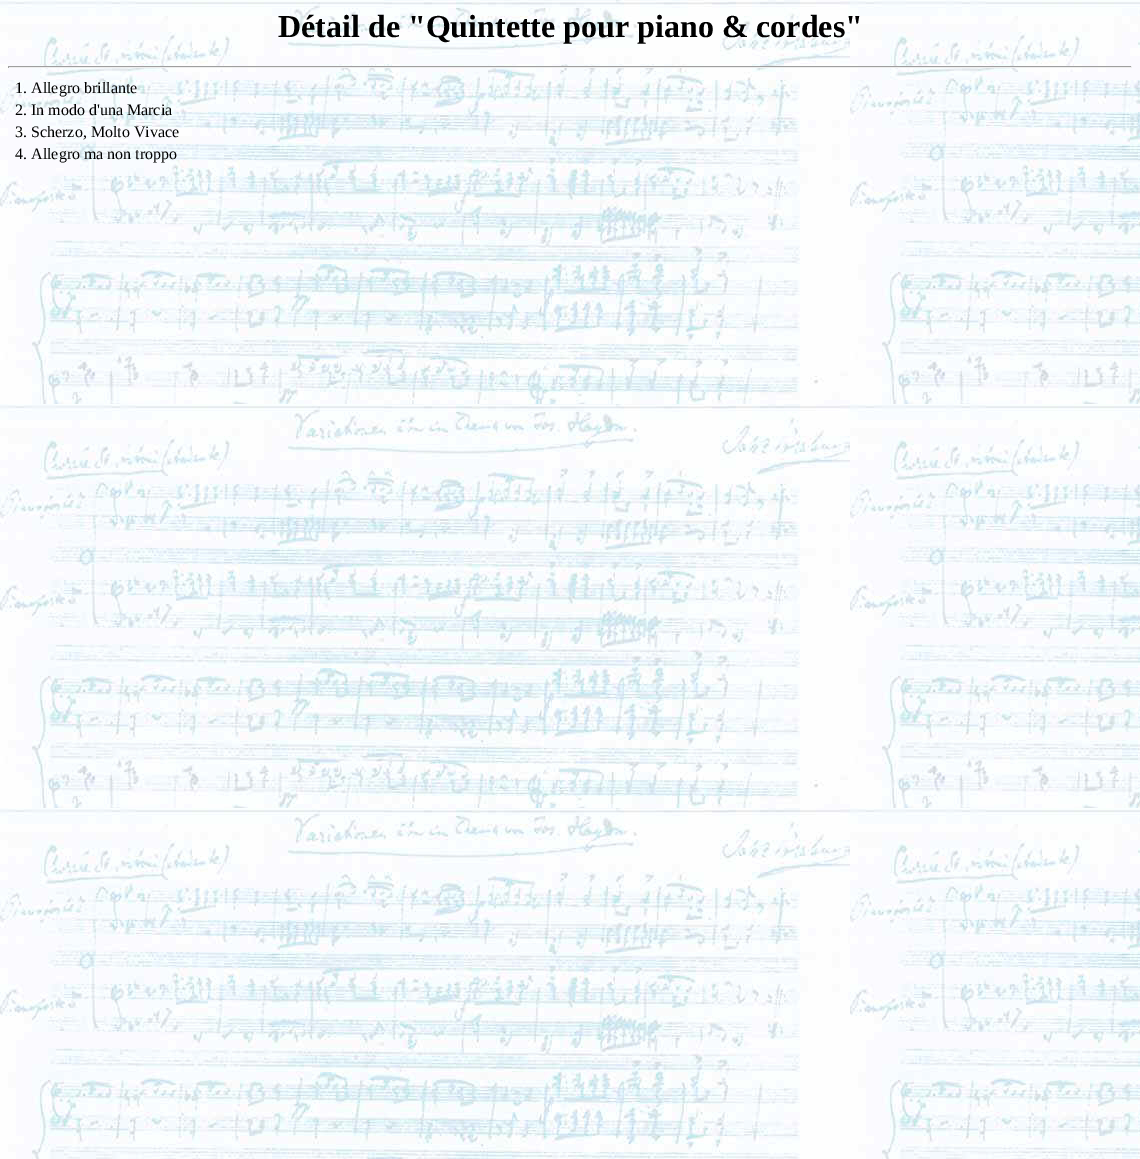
%!PS
<< /PageSize [1140 1159] >> setpagedevice
/co { dup -16 bitshift 255 div exch dup -8 bitshift 255 and 255 div exch 255 and 255 div setrgbcolor } def
/fn { [ exch dup neg 0 0 3 -1 roll 0 0 ] selectfont } def
/tx { co fn moveto show } def
/bx { co rectfill } def
/im { 5 dict begin { /h /w /y /x /name } { exch def } forall
  gsave x y translate w h scale
  w h 8 [w 0 0 h 0 0] name (r) file false 3 colorimage grestore end } def
0 1159 translate 1 -1 scale
4 setmiterlimit
0 0 1140 1159 16#FFFFFF bx
(media/1.raw) 0 0 1140 1159 im
8 66 1124 1 16#9F9F9F bx
1131 66 1 2 16#EEEEEE bx
8 67 1124 1 16#EEEEEE bx
8 66 1 2 16#9F9F9F bx
(Détail de "Quintette pour piano & cordes") 278 37 /LiberationSerif-Bold 32 16#000000 tx
(1. Allegro brillante) 15 93 /LiberationSerif-Regular 16 16#000000 tx
(2. In modo d'una Marcia) 15 115 /LiberationSerif-Regular 16 16#000000 tx
(3. Scherzo, Molto Vivace) 15 137 /LiberationSerif-Regular 16 16#000000 tx
(4. Allegro ma non troppo) 15 159 /LiberationSerif-Regular 16 16#000000 tx
showpage
